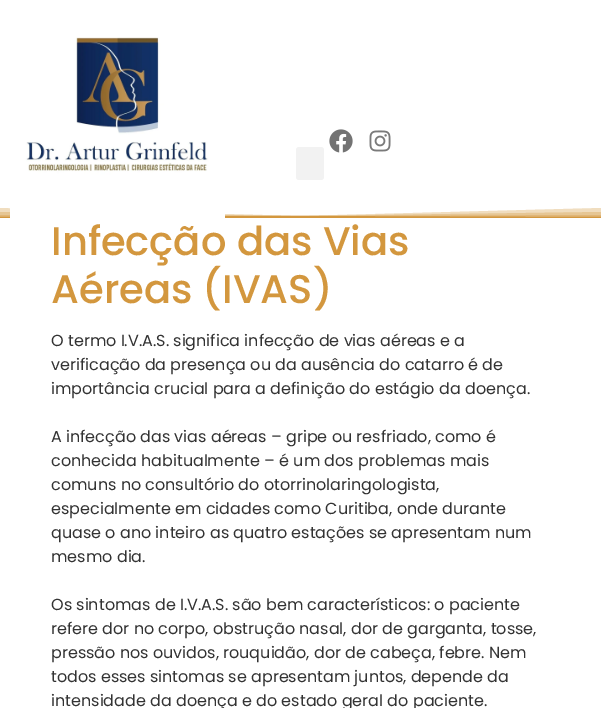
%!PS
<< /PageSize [601 708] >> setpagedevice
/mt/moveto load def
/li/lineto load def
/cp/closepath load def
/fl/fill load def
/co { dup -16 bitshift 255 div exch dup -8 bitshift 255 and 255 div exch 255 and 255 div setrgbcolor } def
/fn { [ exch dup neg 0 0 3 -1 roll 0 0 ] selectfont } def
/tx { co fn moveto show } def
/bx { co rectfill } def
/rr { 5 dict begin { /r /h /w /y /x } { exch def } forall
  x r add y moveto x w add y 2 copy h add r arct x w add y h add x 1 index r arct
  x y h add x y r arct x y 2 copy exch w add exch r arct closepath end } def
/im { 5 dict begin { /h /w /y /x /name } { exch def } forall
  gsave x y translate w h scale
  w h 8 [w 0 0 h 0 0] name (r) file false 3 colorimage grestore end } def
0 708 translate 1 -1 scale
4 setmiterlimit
0 0 601 708 16#FFFFFF bx
16#F0DDBF co
601 218 mt 601 208 li 300 216 li -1 208 li -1 218 li cp fl
16#E6C694 co
601 218 mt 601 212 li 300 216 li -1 212 li -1 218 li cp fl
16#E0B678 co
601 218 mt 601 215 li 300 216 li -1 215 li -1 218 li cp fl
16#D3973E co
601 218 mt 601 217 li 300 216 li -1 217 li -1 218 li cp fl
(media/1.raw) 10 37 215 181 im
(media/2.raw) 329 129 24 24 im
(media/3.raw) 369 130 22 22 im
16#F2F2F2 co
296 147 28 33 3 rr fl
(Infecção das Vias) 51 255 /Poppins-Medium 40 16#D3973E tx
(Aéreas \(IVAS\)) 51 303 /Poppins-Medium 40 16#D3973E tx
(O termo I.V.A.S. significa infecção de vias aéreas e a) 51 346 /Poppins-Regular 16 16#333333 tx
(verificação da presença ou da ausência do catarro é de) 51 370 /Poppins-Regular 16 16#333333 tx
(importância crucial para a definição do estágio da doença.) 51 394 /Poppins-Regular 16 16#333333 tx
(A infecção das vias aéreas – gripe ou resfriado, como é) 51 442 /Poppins-Regular 16 16#333333 tx
(conhecida habitualmente – é um dos problemas mais) 51 466 /Poppins-Regular 16 16#333333 tx
(comuns no consultório do otorrinolaringologista,) 51 490 /Poppins-Regular 16 16#333333 tx
(especialmente em cidades como Curitiba, onde durante) 51 514 /Poppins-Regular 16 16#333333 tx
(quase o ano inteiro as quatro estações se apresentam num) 51 538 /Poppins-Regular 16 16#333333 tx
(mesmo dia.) 51 562 /Poppins-Regular 16 16#333333 tx
(Os sintomas de I.V.A.S. são bem característicos: o paciente) 51 610 /Poppins-Regular 16 16#333333 tx
(refere dor no corpo, obstrução nasal, dor de garganta, tosse,) 51 634 /Poppins-Regular 16 16#333333 tx
(pressão nos ouvidos, rouquidão, dor de cabeça, febre. Nem) 51 658 /Poppins-Regular 16 16#333333 tx
(todos esses sintomas se apresentam juntos, depende da) 51 682 /Poppins-Regular 16 16#333333 tx
(intensidade da doença e do estado geral do paciente.) 51 706 /Poppins-Regular 16 16#333333 tx
showpage
